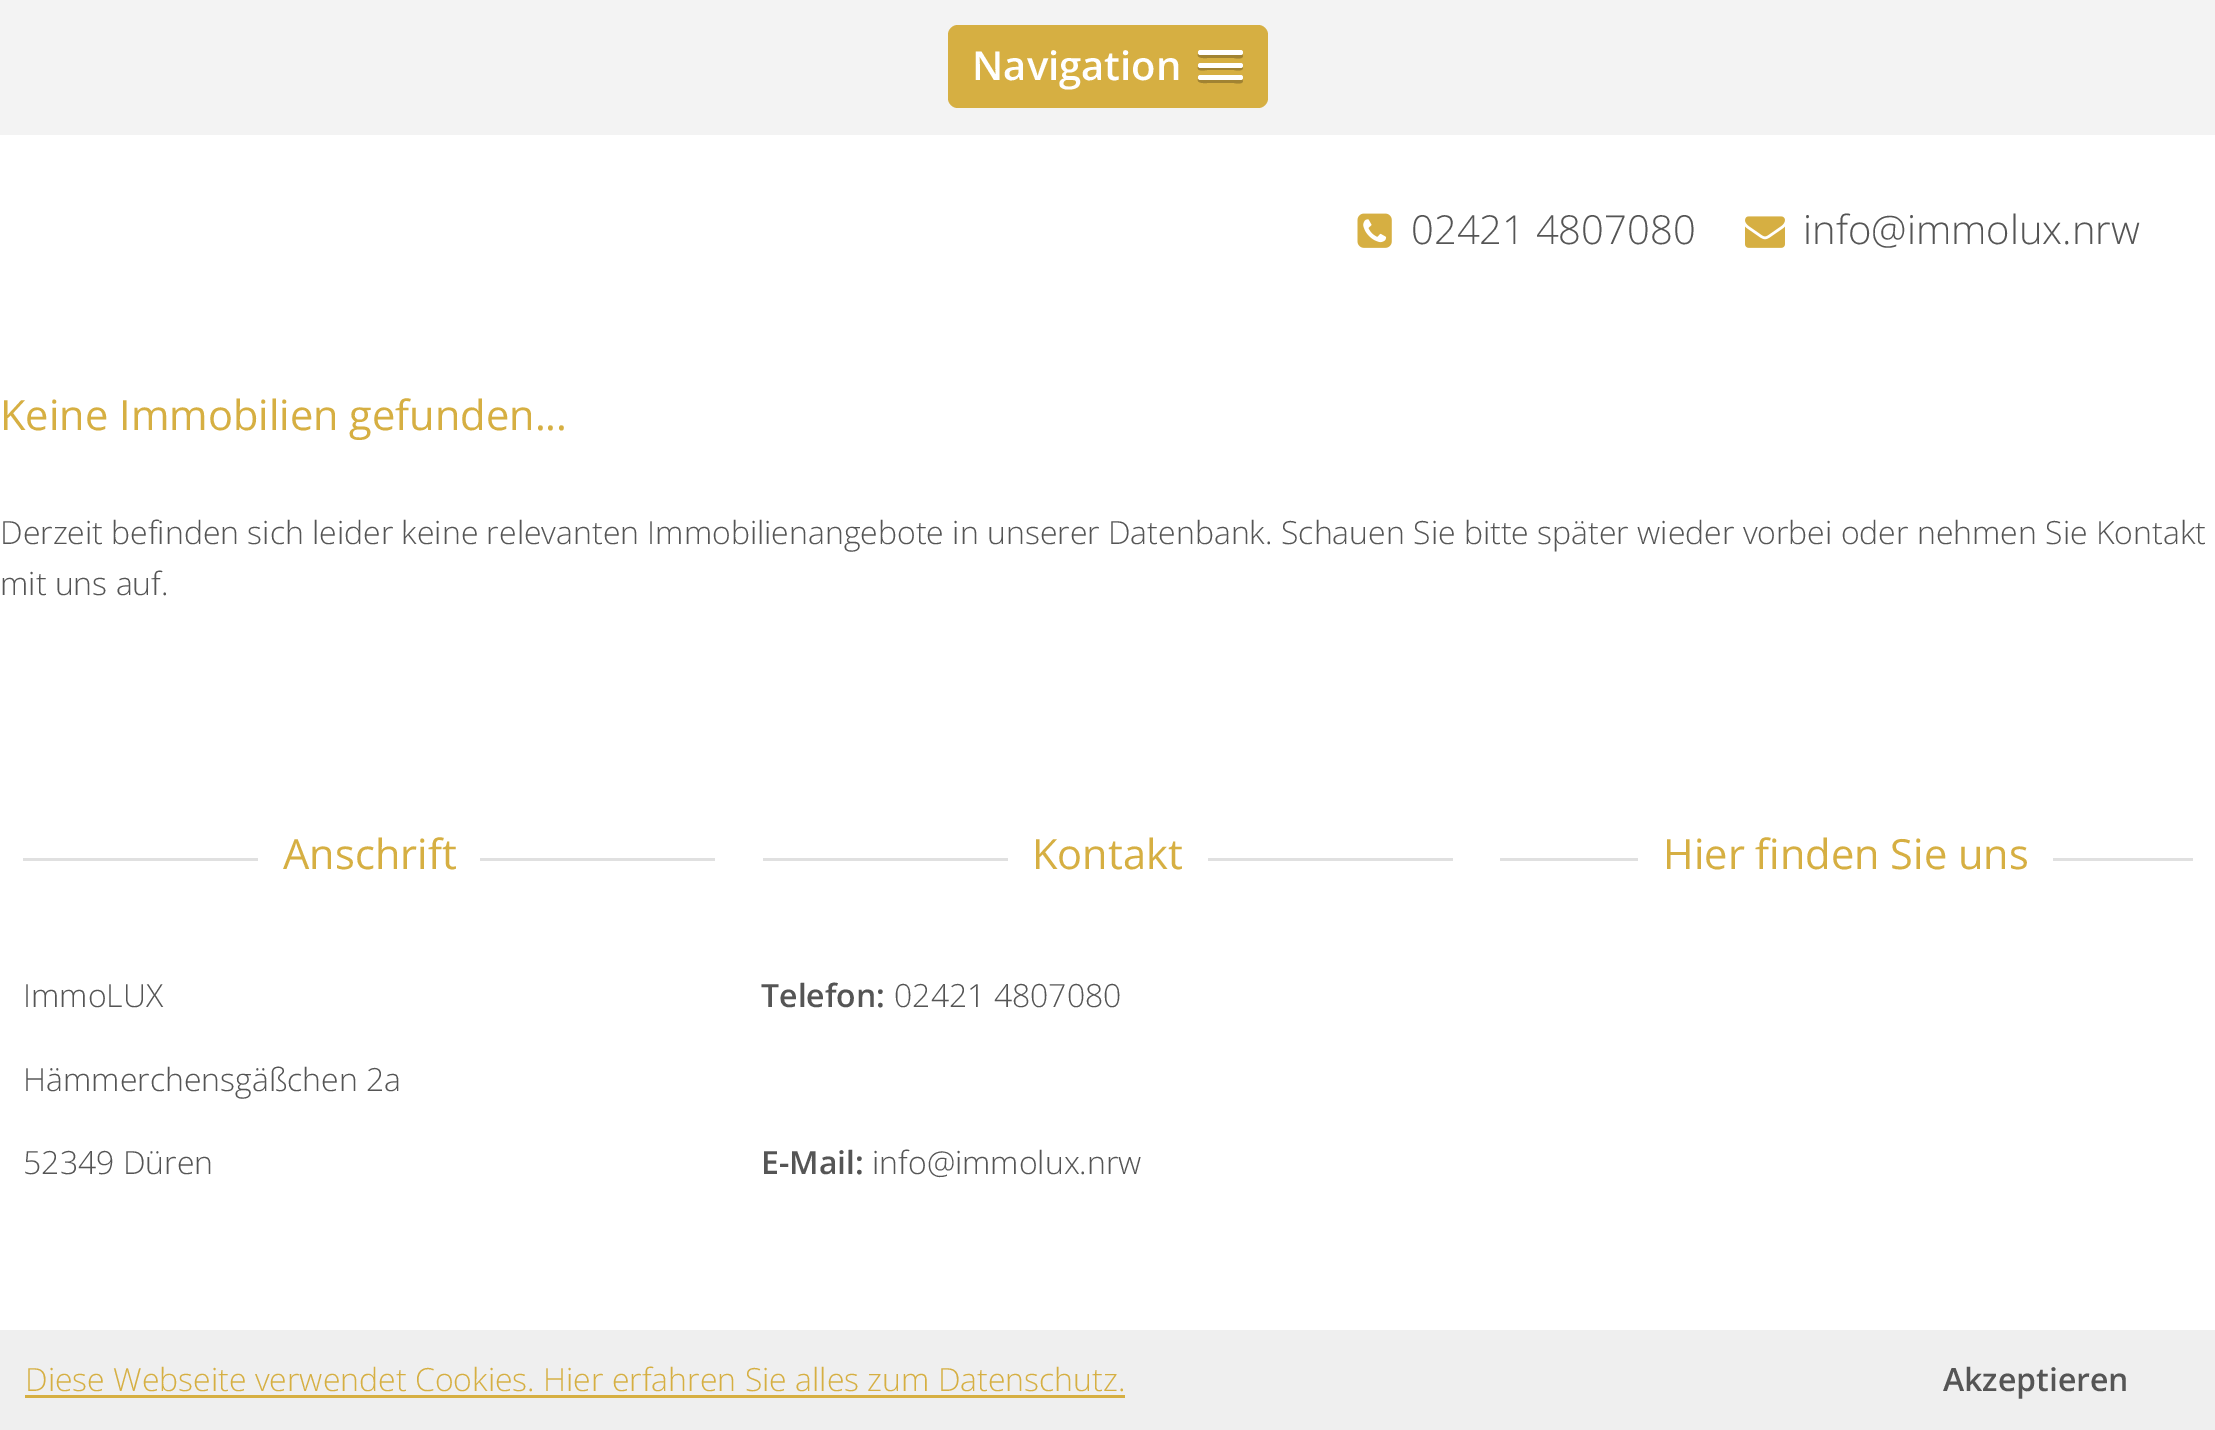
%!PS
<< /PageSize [2215 1430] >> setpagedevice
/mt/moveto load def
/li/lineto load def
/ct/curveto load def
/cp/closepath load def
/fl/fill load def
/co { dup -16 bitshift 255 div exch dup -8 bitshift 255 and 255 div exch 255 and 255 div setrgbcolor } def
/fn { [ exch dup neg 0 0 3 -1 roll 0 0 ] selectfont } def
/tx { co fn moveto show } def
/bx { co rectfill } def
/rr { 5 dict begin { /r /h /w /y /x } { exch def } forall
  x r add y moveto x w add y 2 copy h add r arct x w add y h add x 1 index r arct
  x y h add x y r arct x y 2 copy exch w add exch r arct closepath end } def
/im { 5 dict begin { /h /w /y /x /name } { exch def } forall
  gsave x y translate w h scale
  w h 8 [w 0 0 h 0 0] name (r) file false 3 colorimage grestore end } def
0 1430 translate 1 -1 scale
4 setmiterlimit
0 0 2215 1430 16#FFFFFF bx
0 0 2215 135 16#F3F3F3 bx
16#D6AF42 co
948 25 320 83 10 rr fl
16#A18332 co
1198 54 mt 1196 59 1207 58 1207 58 ct 1234 58 li 1235 58 1242 60 1243 56 ct 1242 54 li 1240 55 li 1237 55 1200 56 1198 54 ct cp fl
16#FFFFFF co
1198 50 45 5 2.5 rr fl
16#A18332 co
1198 67 mt 1196 72 1206 70 1207 70 ct 1234 70 li 1235 70 1242 72 1243 68 ct 1242 66 li 1240 67 li 1200 67 li cp fl
16#FFFFFF co
1198 63 45 5 2.5 rr fl
16#A18332 co
1198 79 mt 1196 84 1207 83 1207 83 ct 1234 83 li 1235 83 1242 85 1243 81 ct 1242 79 li 1240 80 li 1237 80 1200 81 1198 79 ct cp fl
16#FFFFFF co
1198 75 45 5 2.5 rr fl
(media/1.raw) 1357 213 35 35 im
(media/2.raw) 1745 216 40 32 im
23 858 235 3 16#E0E0E0 bx
480 858 235 3 16#E0E0E0 bx
763 858 245 3 16#E0E0E0 bx
1208 858 245 3 16#E0E0E0 bx
1500 858 138 3 16#E0E0E0 bx
2053 858 140 3 16#E0E0E0 bx
0 1330 2215 100 16#EFEFEF bx
25 1395 1100 3 16#D6AF42 bx
(Navigation) 972 80 /OpenSans-SemiBold 40 16#FFFFFF tx
(02421 4807080) 1411 244 /OpenSans-Light 40 16#555555 tx
(info@immolux.nrw) 1803 244 /OpenSans-Light 40 16#555555 tx
(Keine Immobilien gefunden...) 0 430 /OpenSans-Regular 41.6 16#D6AF42 tx
(Derzeit befinden sich leider keine relevanten Immobilienangebote in unserer Datenbank. Schauen Sie bitte später wieder vorbei oder nehmen Sie Kontakt) 0 544 /OpenSans-Light 32 16#555555 tx
(mit uns auf.) 0 595 /OpenSans-Light 32 16#555555 tx
(Anschrift) 283 869 /OpenSans-Regular 41.6 16#D6AF42 tx
(ImmoLUX) 23 1007 /OpenSans-Light 32 16#555555 tx
(Hämmerchensgäßchen 2a) 23 1091 /OpenSans-Light 32 16#555555 tx
(52349 Düren) 23 1174 /OpenSans-Light 32 16#555555 tx
(Kontakt) 1032 869 /OpenSans-Regular 41.6 16#D6AF42 tx
(Telefon:) 761 1007 /OpenSans-SemiBold 32 16#555555 tx
(02421 4807080) 894 1007 /OpenSans-Light 32 16#555555 tx
(E-Mail:) 761 1174 /OpenSans-SemiBold 32 16#555555 tx
(info@immolux.nrw) 872 1174 /OpenSans-Light 32 16#555555 tx
(Hier finden Sie uns) 1663 869 /OpenSans-Regular 41.6 16#D6AF42 tx
(Diese Webseite verwendet Cookies. Hier erfahren Sie alles zum Datenschutz.) 25 1391 /OpenSans-Light 32 16#D6AF42 tx
(Akzeptieren) 1943 1391 /OpenSans-SemiBold 32 16#555555 tx
showpage
